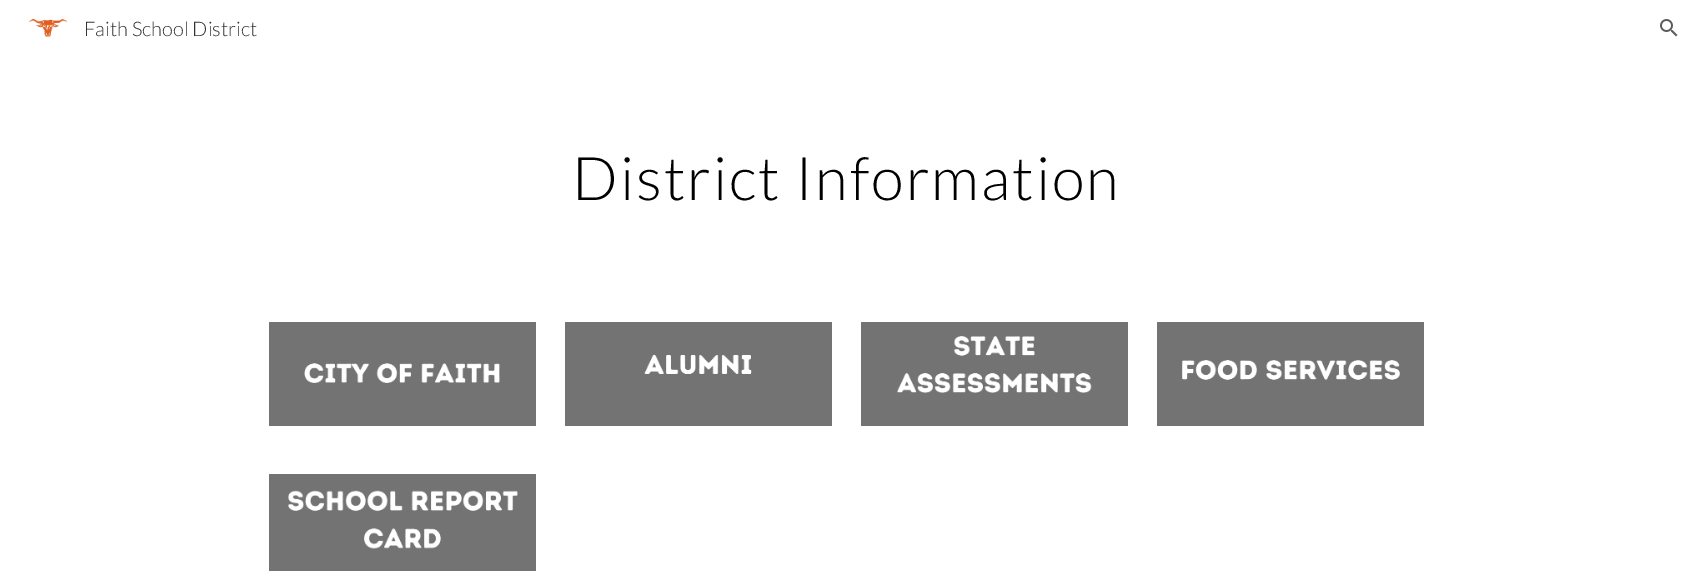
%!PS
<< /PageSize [1693 587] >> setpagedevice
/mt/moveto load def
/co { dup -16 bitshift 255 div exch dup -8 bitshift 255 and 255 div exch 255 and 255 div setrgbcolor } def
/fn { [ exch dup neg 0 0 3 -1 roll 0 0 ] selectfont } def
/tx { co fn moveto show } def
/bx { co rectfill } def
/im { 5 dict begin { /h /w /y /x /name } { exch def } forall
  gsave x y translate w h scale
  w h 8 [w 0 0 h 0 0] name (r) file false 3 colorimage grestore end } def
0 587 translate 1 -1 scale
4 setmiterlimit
0 0 1693 587 16#FFFFFF bx
(media/1.raw) 28 19 40 19 im
(media/2.raw) 1660 19 18 18 im
(media/3.raw) 269 322 267 104 im
(media/4.raw) 565 322 267 104 im
(media/5.raw) 861 322 267 104 im
(media/6.raw) 1157 322 267 104 im
(media/7.raw) 269 474 267 97 im
(Faith School District) 84 36 /Lato-Light 20 16#333333 tx
/Lato-Light 60 fn
16#000000 co
572 200 mt 2 0 (District Information) ashow
showpage
